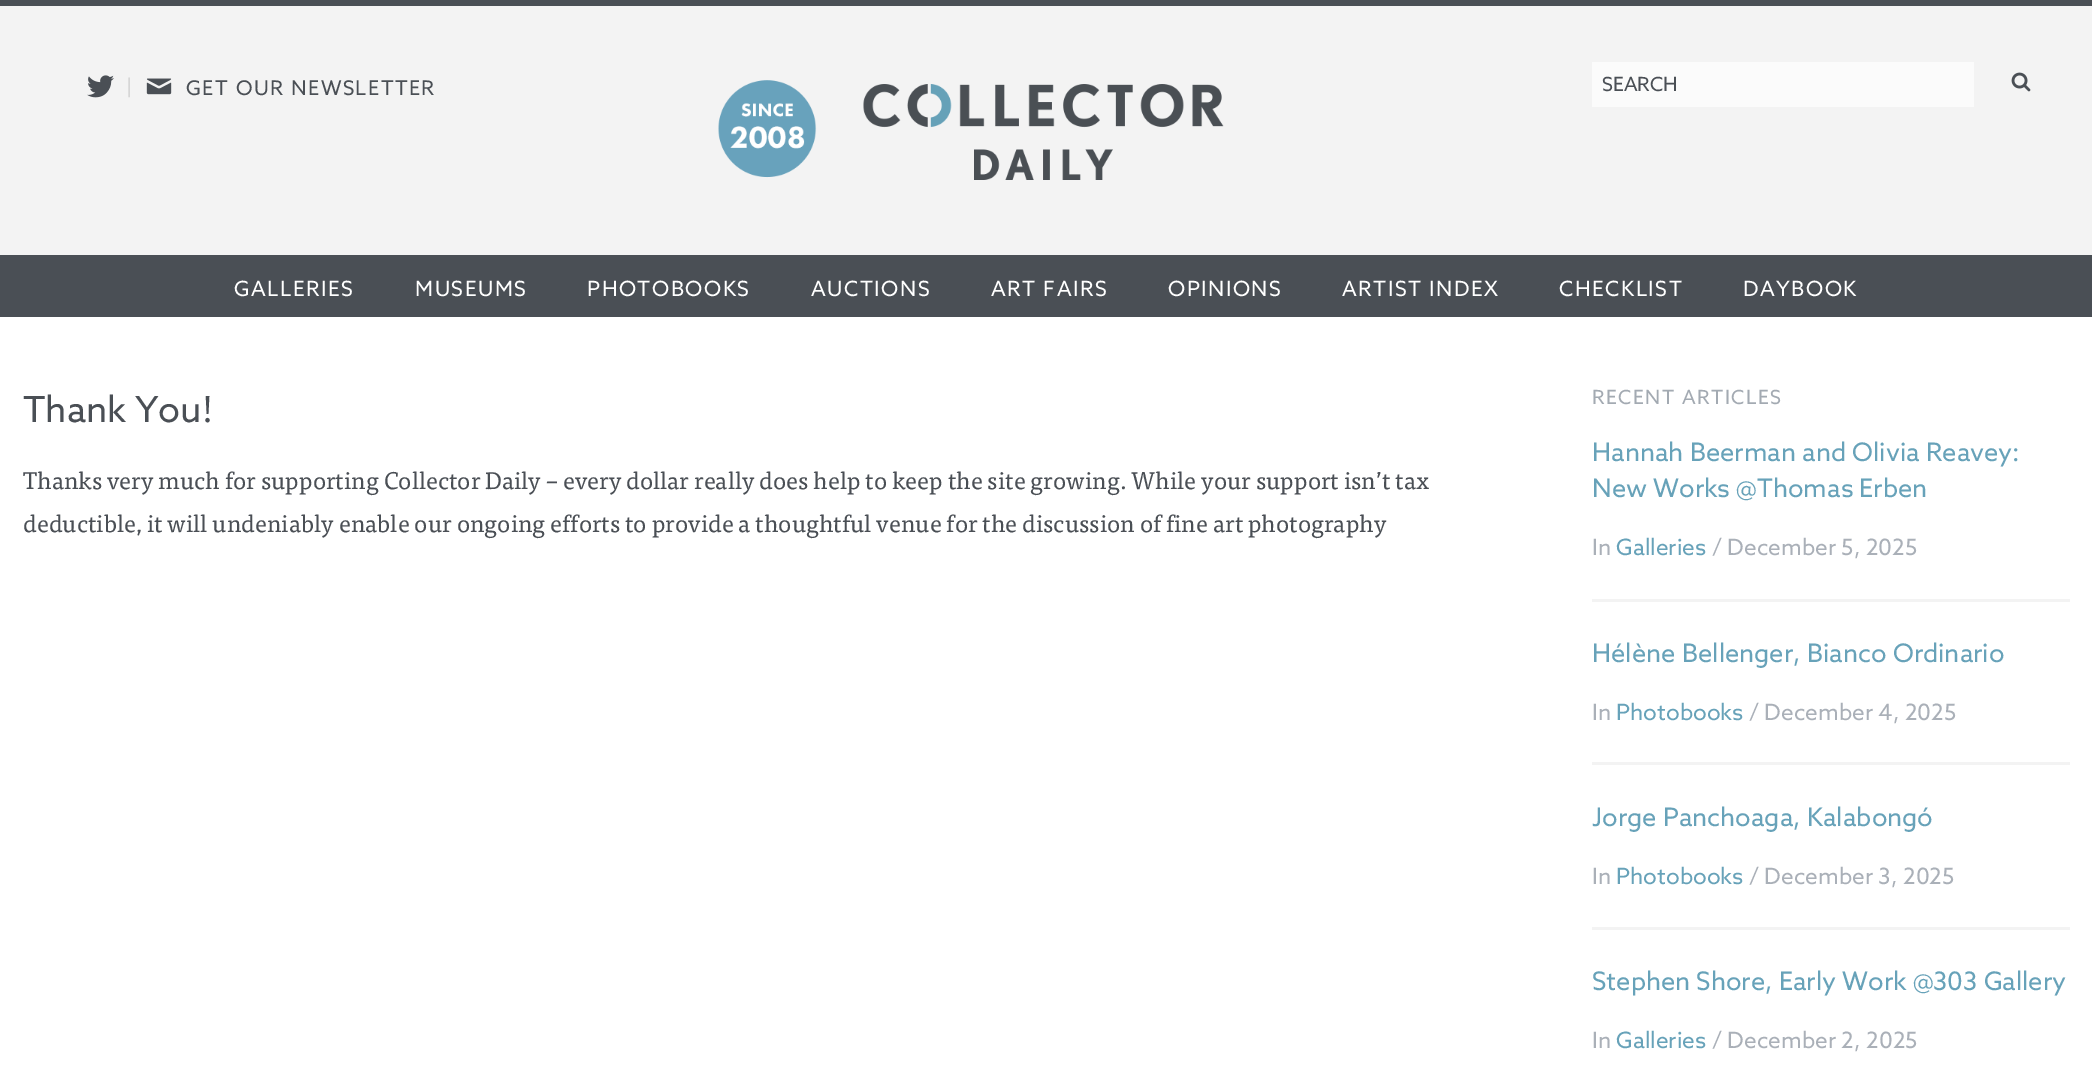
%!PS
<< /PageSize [2092 1081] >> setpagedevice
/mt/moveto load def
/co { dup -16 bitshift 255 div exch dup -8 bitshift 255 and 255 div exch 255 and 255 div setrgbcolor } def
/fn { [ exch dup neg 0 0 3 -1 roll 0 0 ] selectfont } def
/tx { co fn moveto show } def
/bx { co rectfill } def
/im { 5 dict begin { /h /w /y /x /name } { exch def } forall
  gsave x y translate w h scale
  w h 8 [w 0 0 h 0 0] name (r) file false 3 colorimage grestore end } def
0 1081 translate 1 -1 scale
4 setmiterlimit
0 0 2092 1081 16#FFFFFF bx
0 6 2092 249 16#F3F3F3 bx
0 0 2092 6 16#4A4F55 bx
(media/1.raw) 87 75 27 23 im
(media/2.raw) 146 78 26 17 im
(media/3.raw) 718 80 506 100 im
1592 62 382 45 16#FBFBFB bx
(media/4.raw) 2011 72 20 20 im
0 255 2092 62 16#4A4F55 bx
1592 599 478 3 16#F3F3F3 bx
1592 762 478 3 16#F3F3F3 bx
1592 927 478 3 16#F3F3F3 bx
/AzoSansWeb-Regular 19.5 fn
16#CCCCCC co
126 93 mt 1.5 0 (|) ashow
/AzoSansWeb-Regular 20.25 fn
16#4A4F55 co
186 95 mt 1.5 0 (GET OUR NEWSLETTER) ashow
(SEARCH) 1602 91 /AzoSansWeb-Regular 19.5 16#4A4F55 tx
/AzoSansWeb-Regular 21 fn
16#FFFFFF co
234 296 mt 1.5 0 (GALLERIES) ashow
415 296 mt 1.5 0 (MUSEUMS) ashow
587 296 mt 1.5 0 (PHOTOBOOKS) ashow
811 296 mt 1.5 0 (AUCTIONS) ashow
991 296 mt 1.5 0 (ART FAIRS) ashow
1168 296 mt 1.5 0 (OPINIONS) ashow
1342 296 mt 1.5 0 (ARTIST INDEX) ashow
1559 296 mt 1.5 0 (CHECKLIST) ashow
1743 296 mt 1.5 0 (DAYBOOK) ashow
(Thank You!) 23 422 /AzoSansWeb-Regular 36 16#4A4F55 tx
(Thanks very much for supporting Collector Daily – every dollar really does help to keep the site growing. While your support isn’t tax) 23 489 /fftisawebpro-Regular 24 16#4A4F55 tx
(deductible, it will undeniably enable our ongoing efforts to provide a thoughtful venue for the discussion of fine art photography) 23 532 /fftisawebpro-Regular 24 16#4A4F55 tx
/AzoSansWeb-Regular 19.5 fn
16#A3AAB2 co
1592 404 mt 1.5 0 (RECENT ARTICLES) ashow
(Hannah Beerman and Olivia Reavey:) 1592 461 /AzoSansWeb-Regular 25.5 16#67A2B9 tx
(New Works @Thomas Erben) 1592 497 /AzoSansWeb-Regular 25.5 16#67A2B9 tx
(In) 1592 555 /AzoSansWeb-Regular 22.5 16#AAB0B8 tx
(Galleries) 1616 555 /AzoSansWeb-Regular 22.5 16#67A2B9 tx
(/ December 5, 2025) 1712 555 /AzoSansWeb-Regular 22.5 16#AAB0B8 tx
(Hélène Bellenger, Bianco Ordinario) 1592 662 /AzoSansWeb-Regular 25.5 16#67A2B9 tx
(In) 1592 720 /AzoSansWeb-Regular 22.5 16#AAB0B8 tx
(Photobooks) 1616 720 /AzoSansWeb-Regular 22.5 16#67A2B9 tx
(/ December 4, 2025) 1749 720 /AzoSansWeb-Regular 22.5 16#AAB0B8 tx
(Jorge Panchoaga, Kalabongó) 1592 826 /AzoSansWeb-Regular 25.5 16#67A2B9 tx
(In) 1592 884 /AzoSansWeb-Regular 22.5 16#AAB0B8 tx
(Photobooks) 1616 884 /AzoSansWeb-Regular 22.5 16#67A2B9 tx
(/ December 3, 2025) 1749 884 /AzoSansWeb-Regular 22.5 16#AAB0B8 tx
(Stephen Shore, Early Work @303 Gallery) 1592 990 /AzoSansWeb-Regular 25.5 16#67A2B9 tx
(In) 1592 1048 /AzoSansWeb-Regular 22.5 16#AAB0B8 tx
(Galleries) 1616 1048 /AzoSansWeb-Regular 22.5 16#67A2B9 tx
(/ December 2, 2025) 1712 1048 /AzoSansWeb-Regular 22.5 16#AAB0B8 tx
showpage
